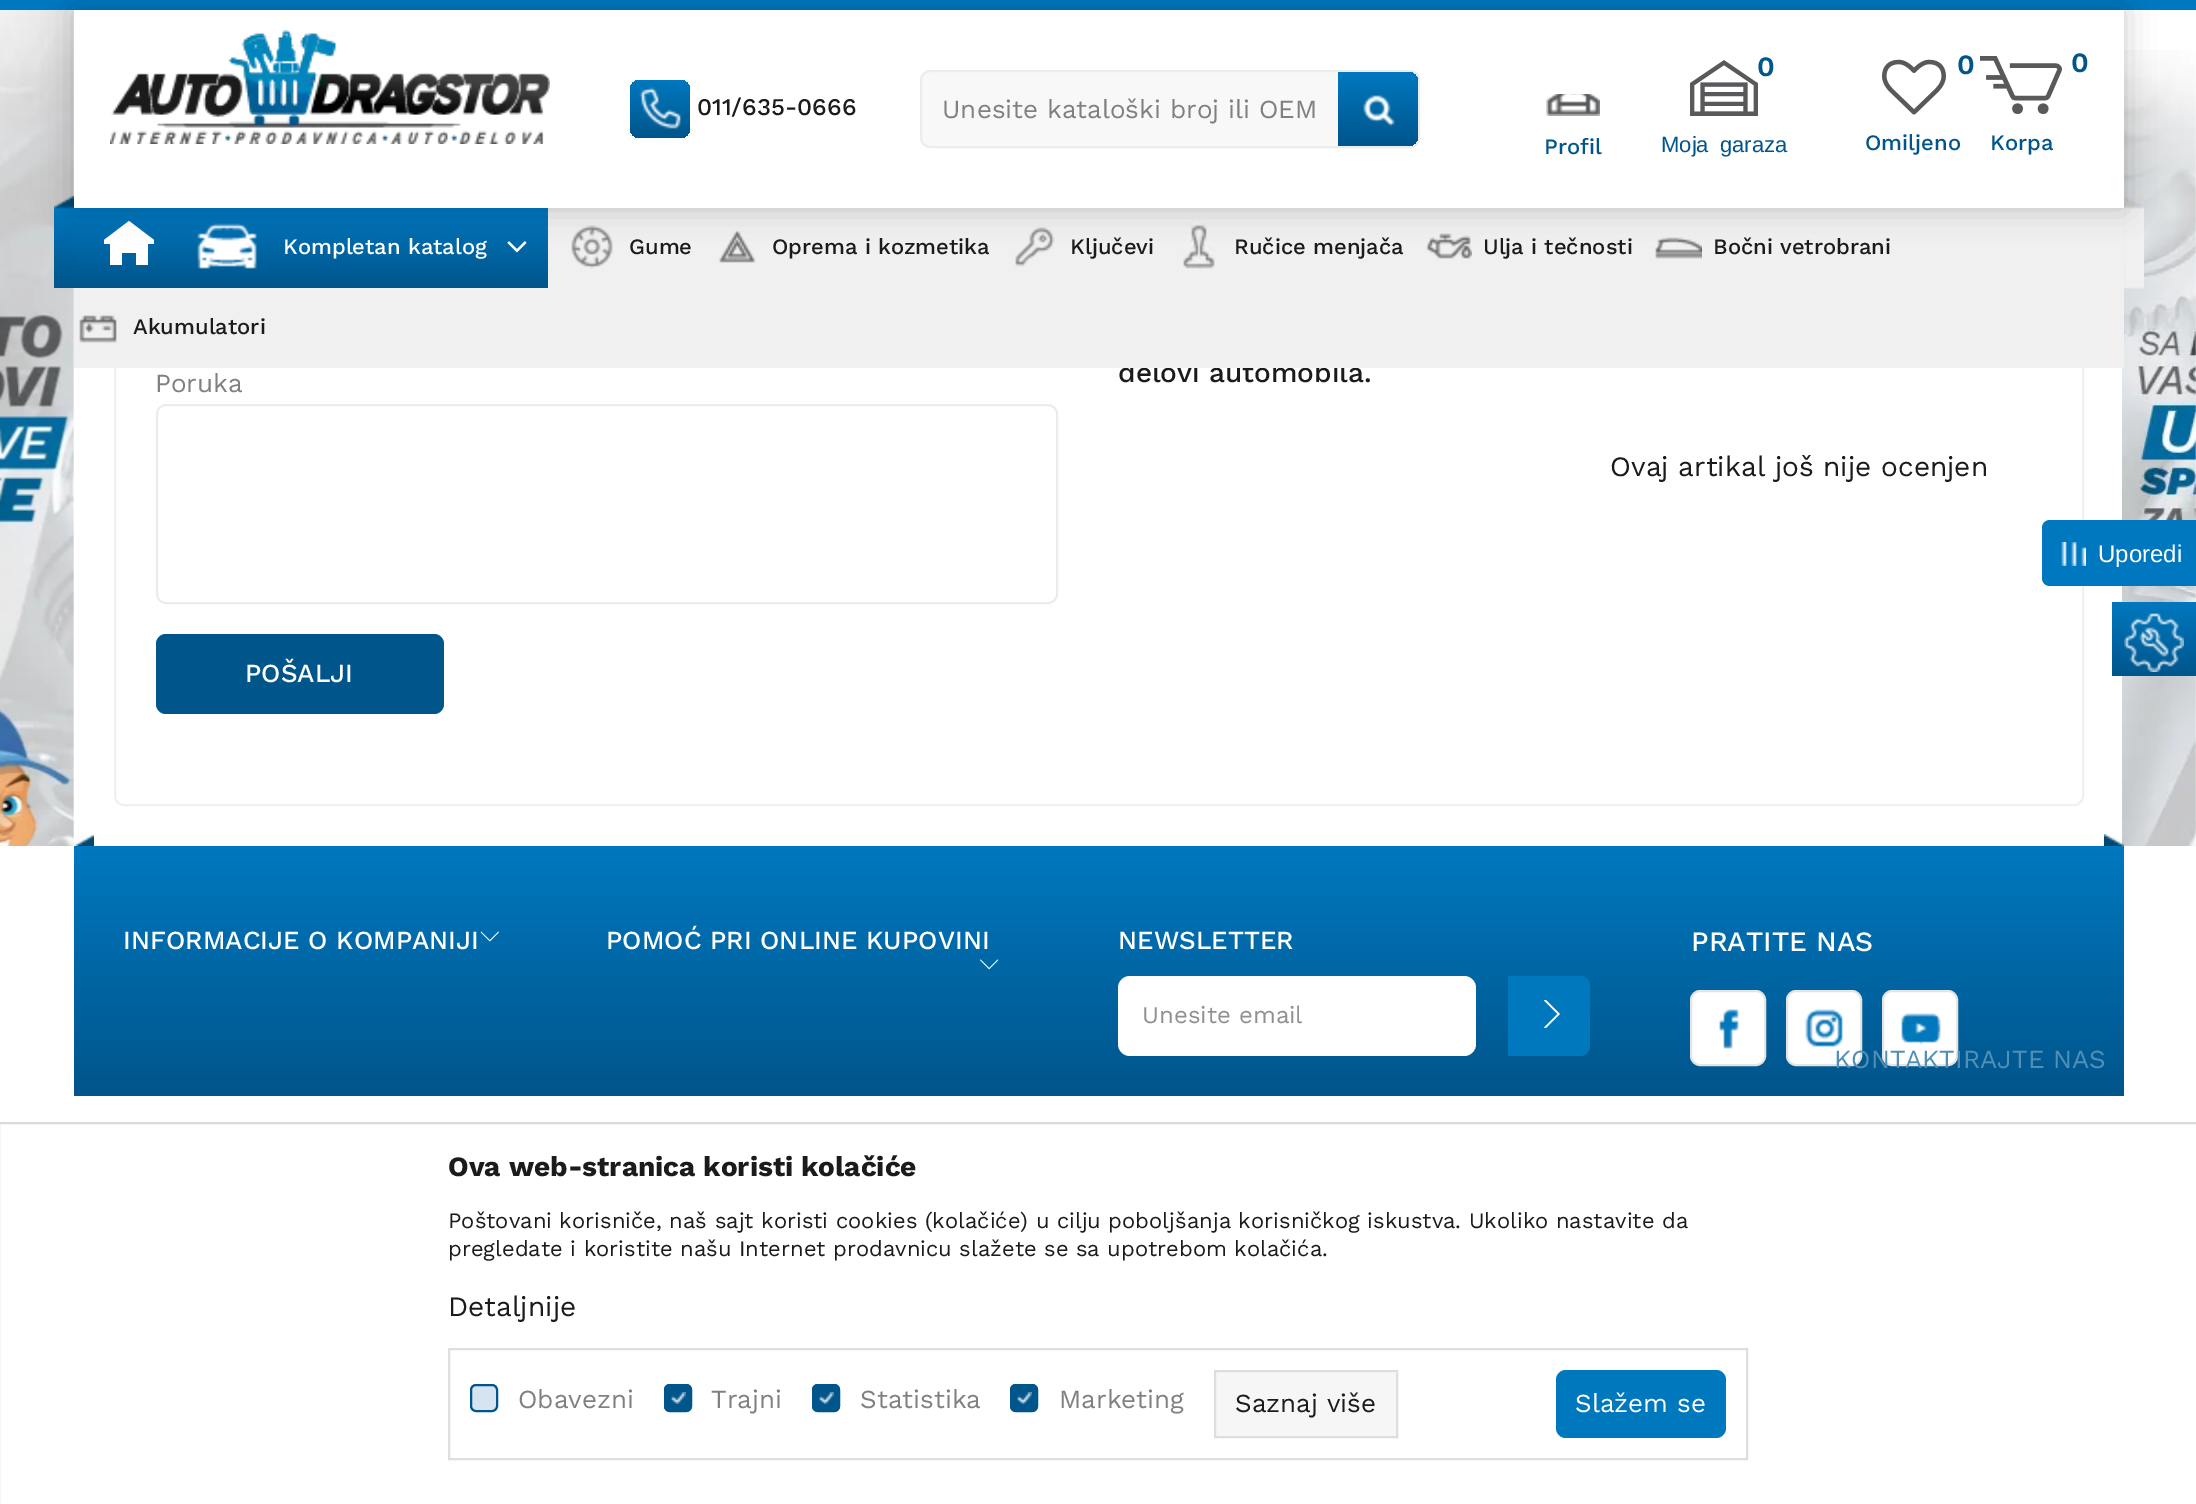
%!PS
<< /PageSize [2196 1504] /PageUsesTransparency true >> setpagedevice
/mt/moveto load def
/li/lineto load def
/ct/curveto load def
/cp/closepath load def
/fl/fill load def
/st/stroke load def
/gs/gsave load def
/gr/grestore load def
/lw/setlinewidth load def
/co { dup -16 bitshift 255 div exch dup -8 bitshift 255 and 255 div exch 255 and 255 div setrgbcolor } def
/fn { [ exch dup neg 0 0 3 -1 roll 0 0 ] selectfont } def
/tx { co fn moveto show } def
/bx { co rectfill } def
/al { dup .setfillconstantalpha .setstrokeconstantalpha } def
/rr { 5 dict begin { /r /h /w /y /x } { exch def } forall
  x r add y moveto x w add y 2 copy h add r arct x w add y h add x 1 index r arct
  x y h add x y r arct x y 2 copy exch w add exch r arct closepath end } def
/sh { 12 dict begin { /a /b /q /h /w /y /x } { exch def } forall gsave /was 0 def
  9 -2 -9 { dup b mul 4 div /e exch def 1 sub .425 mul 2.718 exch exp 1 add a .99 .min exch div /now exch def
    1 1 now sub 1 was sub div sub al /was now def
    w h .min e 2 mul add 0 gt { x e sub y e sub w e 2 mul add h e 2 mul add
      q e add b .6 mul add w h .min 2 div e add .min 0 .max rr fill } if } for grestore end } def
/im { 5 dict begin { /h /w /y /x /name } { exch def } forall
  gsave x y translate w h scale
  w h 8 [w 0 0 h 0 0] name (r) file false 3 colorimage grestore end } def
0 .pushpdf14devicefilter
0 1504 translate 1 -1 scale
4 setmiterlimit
0 0 2196 1504 16#FFFFFF bx
(media/1.raw) 0 10 74 836 im
16#F0F0F0 co
2 lw
115 -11 1968 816 9 rr st
0 0 2196 10 16#0078BF bx
(media/9.raw) 54 196 20 92 im
(media/20.raw) 2122 50 74 796 im
(media/19.raw) 2124 196 20 93 im
16#ECECEC co
157 405 900 198 9 rr st
16#00558B co
156 634 288 80 10 rr fl
16#0078BF co
2050 520 mt 2196 520 li 2196 586 li 2050 586 li 2045.5 586 2042 582.5 2042 578 ct 2042 528 li 2042 523.5 2045.5 520 2050 520 ct cp fl
(media/21.raw) 2061 542 25 24 im
gs 2112 602 mt 2196 602 li 2196 676 li 2112 676 li cp clip newpath
<< /ShadingType 2 /ColorSpace /DeviceRGB /Coords [2154 676 2154 602] /Extend [true true] /Function << /FunctionType 2 /Domain [0 1] /C0 [0 .333 .545] /C1 [0 .471 .749] /N 1 >> >> shfill gr
(media/22.raw) 2124 613 60 59 im
gs 74 846 mt 2124 846 li 2124 1096 li 74 1096 li cp clip newpath
<< /ShadingType 2 /ColorSpace /DeviceRGB /Coords [1099 1096 1099 846] /Extend [true true] /Function << /FunctionType 2 /Domain [0 1] /C0 [0 .333 .545] /C1 [0 .471 .749] /N 1 >> >> shfill gr
(media/23.raw) 74 834 20 12 im
(media/24.raw) 2104 834 20 12 im
(media/25.raw) 480 931 19 11 im
(media/26.raw) 980 959 19 11 im
16#FFFFFF co
1118 976 358 80 12 rr fl
16#0078BD co
1508 976 mt 1580 976 li 1585.5 976 1590 980.5 1590 986 ct 1590 1046 li 1590 1051.5 1585.5 1056 1580 1056 ct 1508 1056 li cp fl
16#FFFFFF co
1560 1014 mt 1546 1000 li 1545.5 1000 li 1544.5 1000 li 1544 1000.5 li 1557.5 1014 li 1544 1027.5 li 1544.5 1028 li 1545 1027.5 li 1546 1028 li cp fl
1691 991 74 74 9 rr gs fl gr
16#E4E4E4 co
st
(media/27.raw) 1719 1009 20 40 im
16#FFFFFF co
1787 991 74 74 9 rr gs fl gr
16#E4E4E4 co
st
(media/28.raw) 1805 1009 38 38 im
16#FFFFFF co
1883 991 74 74 9 rr gs fl gr
16#E4E4E4 co
st
(media/29.raw) 1901 1013 40 32 im
16#D9D9D9 co
-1 1123 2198 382 rectstroke
16#DEDEDE co
449 1349 1298 110 rectstroke
16#D6E3F0 co
471 1385 26 26 5 rr gs fl gr
16#00558B co
st
664 1384 28 28 6 rr fl
(media/30.raw) 671 1392 15 12 im
665 1385 26 26 5 rr st
812 1384 28 28 6 rr fl
(media/30.raw) 819 1392 15 12 im
813 1385 26 26 5 rr st
1010 1384 28 28 6 rr fl
(media/30.raw) 1017 1392 15 12 im
1011 1385 26 26 5 rr st
16#F6F6F6 co
1215 1371 mt 1397 1371 li 1397 1437 li 1215 1437 li cp gs fl gr
16#DEDEDE co
st
16#0078BD co
1556 1370 170 68 10 rr fl
(Poruka) 155 392 /WorkSans-Regular 26 16#808080 tx
(POŠALJI) 245 682 /WorkSans-Medium 26 16#FFFFFF tx
(delovi automobila.) 1118 382 /WorkSans-Medium 28 16#1B1B1B tx
74 208 2050 160 16#F0F0F0 bx
gs 164 208 mt 548 208 li 548 288 li 164 288 li cp clip newpath
<< /ShadingType 2 /ColorSpace /DeviceRGB /Coords [356 288 356 208] /Extend [true true] /Function << /FunctionType 2 /Domain [0 1] /C0 [0 .333 .545] /C1 [0 .471 .749] /N 1 >> >> shfill gr
(media/11.raw) 507 241 20 12 im
(media/17.raw) 1655 237 47 22 im
(media/16.raw) 1425 233 47 26 im
(media/15.raw) 1183 222 32 48 im
(media/14.raw) 1015 227 40 40 im
(media/13.raw) 719 230 37 33 im
(media/12.raw) 571 225 42 44 im
(media/10.raw) 197 223 60 46 im
gs 74 208 mt 164 208 li 164 288 li 74 288 li cp clip newpath
<< /ShadingType 2 /ColorSpace /DeviceRGB /Coords [119 288 119 208] /Extend [true true] /Function << /FunctionType 2 /Domain [0 1] /C0 [0 .333 .545] /C1 [0 .471 .749] /N 1 >> >> shfill gr
16#FFFFFF co
110 244 mt 110 265 li 122 265 li 122 253 li 136 253 li 136 265 li 148 265 li 148 244 li 154 244 li 154 240 li 129 221 li 104 240 li 104 244 li cp fl
16#000000 co
74 10 2050 198 0 15 .2 sh
74 10 2050 198 16#FFFFFF bx
(0) 2071 72 /WorkSans-SemiBold 28 16#00558B tx
(Korpa) 1990 150 /WorkSans-Medium 22 16#00558B tx
(media/8.raw) 1980 56 82 58 im
(0) 1957 74 /WorkSans-SemiBold 28 16#00558B tx
(Omiljeno) 1865 150 /WorkSans-Medium 22 16#00558B tx
(media/7.raw) 1882 59 64 56 im
(0) 1757 76 /WorkSans-SemiBold 28 16#00558B tx
/LiberationSans-Regular 22 fn
1661 152 mt 5 0 32 (Moja garaza) widthshow
(media/6.raw) 1690 60 68 56 im
(Profil) 1544 154 /WorkSans-Medium 22 16#00558B tx
(media/5.raw) 1546 94 54 22 im
16#F8F8F8 co
921 71 498 76 9 rr gs fl gr
16#ECECEC co
st
gs 1338 72 mt 1408 72 li 1413.5 72 1418 76.5 1418 82 ct 1418 136 li 1418 141.5 1413.5 146 1408 146 ct 1338 146 li cp clip newpath
<< /ShadingType 2 /ColorSpace /DeviceRGB /Coords [1378 146 1378 72] /Extend [true true] /Function << /FunctionType 2 /Domain [0 1] /C0 [0 .333 .545] /C1 [0 .471 .749] /N 1 >> >> shfill gr
(media/4.raw) 1363 95 32 32 im
(Unesite kataloški broj ili OEM) 942 118 /WorkSans-Regular 26 16#808080 tx
(011/635-0666) 697 115 /WorkSans-Medium 24 16#1B1B1B tx
gs 630 80 60 58 10 rr clip newpath
<< /ShadingType 2 /ColorSpace /DeviceRGB /Coords [660 138 660 80] /Extend [true true] /Function << /FunctionType 2 /Domain [0 1] /C0 [0 .333 .545] /C1 [0 .471 .749] /N 1 >> >> shfill gr
(media/3.raw) 639 87 42 42 im
(media/2.raw) 110 30 440 114 im
(Akumulatori) 133 334 /WorkSans-Medium 22 16#1B1B1B tx
(Bočni vetrobrani) 1713 254 /WorkSans-Medium 22 16#1B1B1B tx
(Ulja i tečnosti) 1483 254 /WorkSans-Medium 22 16#1B1B1B tx
(Ručice menjača) 1234 254 /WorkSans-Medium 22 16#1B1B1B tx
(Ključevi) 1070 254 /WorkSans-Medium 22 16#1B1B1B tx
(Oprema i kozmetika) 772 254 /WorkSans-Medium 22 16#1B1B1B tx
(Gume) 629 254 /WorkSans-Medium 22 16#1B1B1B tx
(Kompletan katalog) 283 254 /WorkSans-Medium 22 16#FFFFFF tx
(media/18.raw) 79 315 38 28 im
(Ovaj artikal još nije ocenjen) 1610 476 /WorkSans-Regular 28 16#1B1B1B tx
(Uporedi) 2098 562 /LiberationSans-Regular 24 16#FFFFFF tx
(INFORMACIJE O KOMPANIJI) 123 949 /WorkSans-Medium 26 16#FFFFFF tx
(POMOĆ PRI ONLINE KUPOVINI) 606 949 /WorkSans-Medium 26 16#FFFFFF tx
(NEWSLETTER) 1118 949 /WorkSans-Medium 26 16#FFFFFF tx
(Unesite email) 1142 1023 /WorkSans-Regular 24 16#8E9092 tx
(PRATITE NAS) 1691 951 /WorkSans-Medium 28 16#FFFFFF tx
(KONTAKTIRAJTE NAS) 1834 1068 /WorkSans-Regular 26 16#528FB5 tx
(Ova web-stranica koristi kolačiće) 448 1176 /WorkSans-Bold 28 16#1B1B1B tx
(Poštovani korisniče, naš sajt koristi cookies \(kolačiće\) u cilju poboljšanja korisničkog iskustva. Ukoliko nastavite da) 448 1228 /WorkSans-Regular 22 16#1B1B1B tx
(pregledate i koristite našu Internet prodavnicu slažete se sa upotrebom kolačića.) 448 1256 /WorkSans-Regular 22 16#1B1B1B tx
(Detaljnije) 448 1316 /WorkSans-Regular 28 16#1B1B1B tx
(Obavezni) 518 1408 /WorkSans-Regular 26 16#808080 tx
(Trajni) 711 1408 /WorkSans-Regular 26 16#808080 tx
(Statistika) 860 1408 /WorkSans-Regular 26 16#808080 tx
(Marketing) 1059 1408 /WorkSans-Regular 26 16#808080 tx
(Saznaj više) 1235 1412 /WorkSans-Regular 26 16#1B1B1B tx
(Slažem se) 1575 1412 /WorkSans-Regular 26 16#FFFFFF tx
.poppdf14devicefilter showpage
